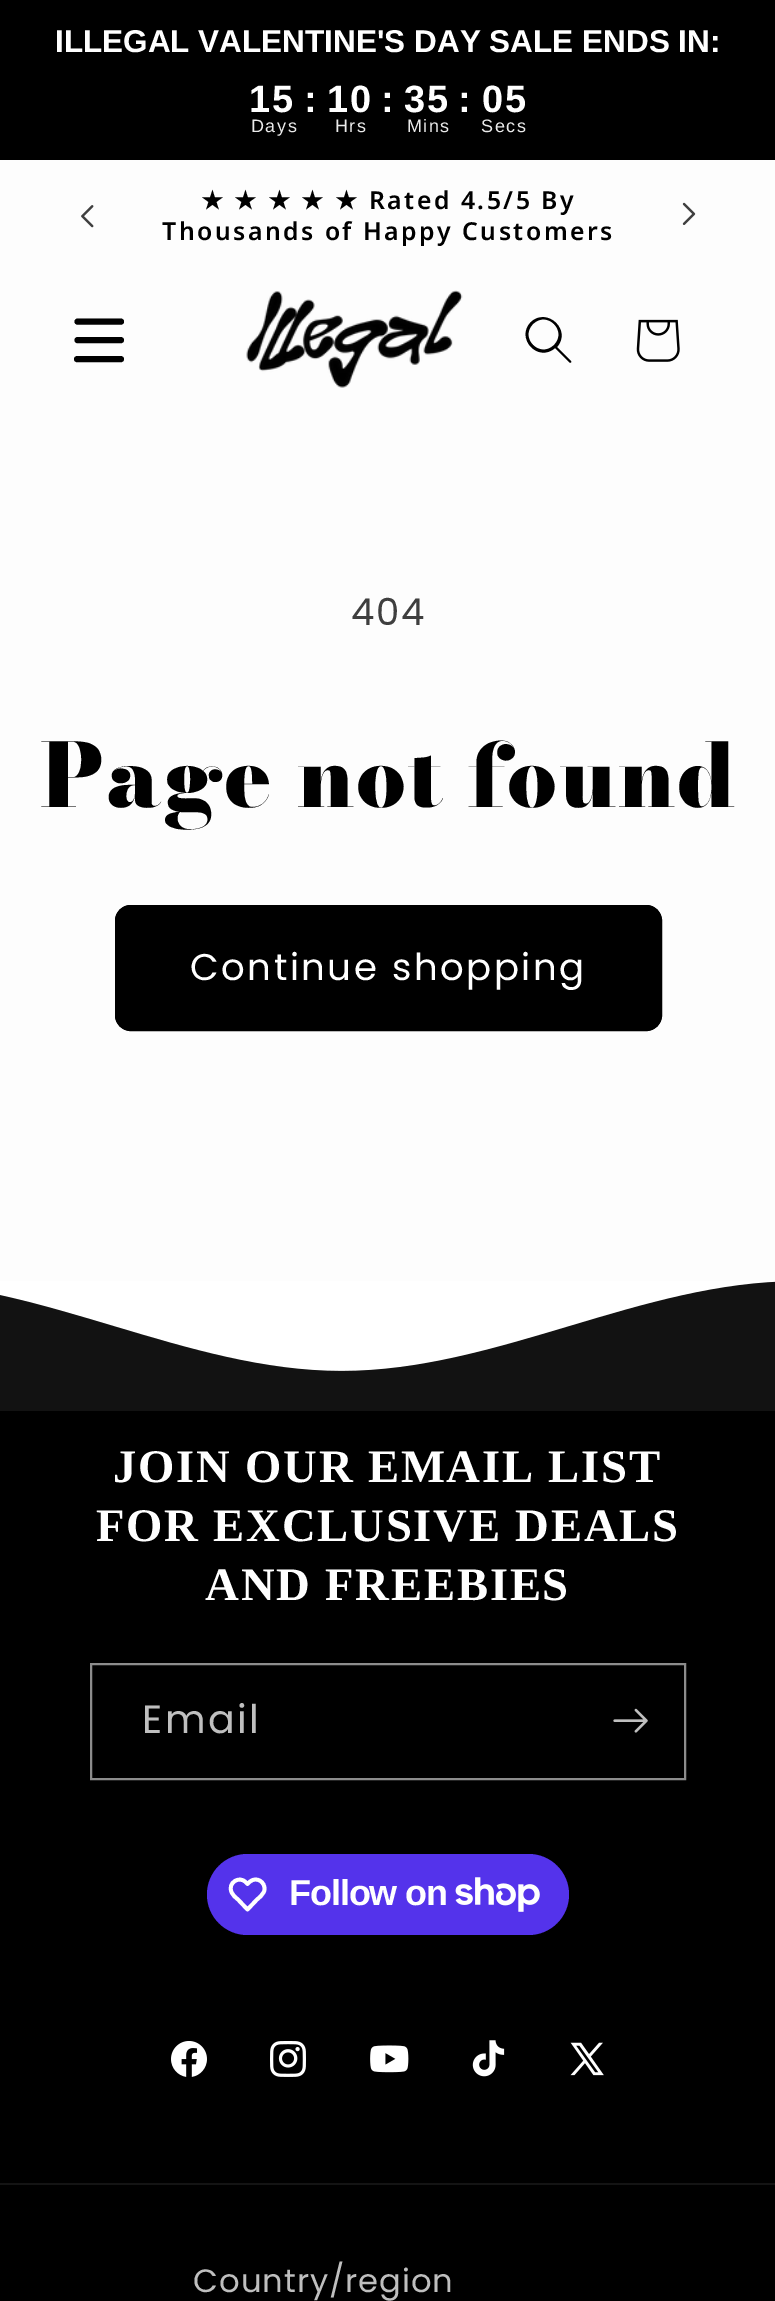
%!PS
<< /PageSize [775 2301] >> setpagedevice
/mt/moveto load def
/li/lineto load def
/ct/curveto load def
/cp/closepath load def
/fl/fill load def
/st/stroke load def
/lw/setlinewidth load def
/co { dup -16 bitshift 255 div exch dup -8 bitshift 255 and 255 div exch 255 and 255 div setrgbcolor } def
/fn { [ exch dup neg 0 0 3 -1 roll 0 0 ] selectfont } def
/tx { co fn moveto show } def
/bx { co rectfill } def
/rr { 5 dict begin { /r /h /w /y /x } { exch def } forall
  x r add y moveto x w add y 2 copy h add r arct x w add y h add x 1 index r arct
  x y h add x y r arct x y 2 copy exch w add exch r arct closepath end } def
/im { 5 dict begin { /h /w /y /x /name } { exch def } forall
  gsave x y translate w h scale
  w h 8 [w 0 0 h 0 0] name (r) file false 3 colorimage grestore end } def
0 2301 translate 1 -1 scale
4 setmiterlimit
0 0 775 2301 16#FDFDFD bx
0 0 775 160 16#000000 bx
(media/1.raw) 81 205 13 23 im
(media/2.raw) 682 202 14 23 im
6 lw
1 setlinecap
77.5 321.5 mt 121 321.5 li 121 340 mt 77.5 340 li 121 359 mt 77 359 li st
(media/3.raw) 246 290 217 98 im
554 345 mt 540 359 519 338 533 324 ct 547 310 568 331 554 345 ct 555 348 mt 538 363 515 338 531 322 ct 547 307 572 330 557 347 ct 571 361 li 572 363 570 363 569 362 ct cp eofill
(media/4.raw) 636 319 44 43 im
115 905 547 126 16 rr fl
7 lw
0 setlinecap
118.5 908.5 540 119 12.5 rr st
(media/5.raw) 0 1281 775 130 im
0 1411 775 890 16#000000 bx
16#8C8C8C co
2 lw
91 1664 594 115 rectstroke
(media/6.raw) 613 1708 35 25 im
16#5433EB co
207 1854 362 81 40.5 rr fl
16#FFFFFF co
3.8 lw
1 setlinejoin
245.5 1882 mt 247.5 1884 li 249 1882.5 250.5 1880.5 253 1880 ct 260 1877.5 266.5 1885 264 1891.5 ct 262.5 1895 259.5 1897.5 257 1899.5 ct 247.5 1909.5 li 238 1899.5 li 235.5 1897.5 232.5 1895 231.5 1892 ct 227.5 1883 239 1875.5 245.5 1882 ct cp st
(media/7.raw) 455 1877 85 35 im
(media/8.raw) 171 2041 36 36 im
(media/9.raw) 270 2041 36 36 im
(media/10.raw) 370 2045 39 28 im
(media/11.raw) 472 2040 33 37 im
(media/12.raw) 570 2042 34 34 im
0 2183 775 2 16#141414 bx
(ILLEGAL VALENTINE'S DAY SALE ENDS IN:) 55 52 /LiberationSans-Bold 31.5 16#FFFFFF tx
/LiberationSans-Bold 38 fn
249 112 mt 1.5 0 (15) ashow
304 112 mt 1.5 0 (:) ashow
327 112 mt 1.5 0 (10) ashow
381 112 mt 1.5 0 (:) ashow
404 112 mt 1.5 0 (35) ashow
458 112 mt 1.5 0 (:) ashow
482 112 mt 1.5 0 (05) ashow
/LiberationSans-Regular 18 fn
16#EAEAEA co
251 132 mt 1.5 0 (Days) ashow
335 132 mt 1.5 0 (Hrs) ashow
407 132 mt 1.5 0 (Mins) ashow
481 132 mt 1.5 0 (Secs) ashow
/DejaVuSans-Bold 24.75 fn
16#000000 co
201 209 mt 2.5 0 (★) ashow
234 209 mt 2.5 0 (★) ashow
268 209 mt 2.5 0 (★) ashow
301 209 mt 2.5 0 (★) ashow
335 209 mt 2.5 0 (★) ashow
/NotoSans-SemiBold 24.75 fn
369 209 mt 2.5 0 (Rated 4.5/5 By) ashow
162 240 mt 2.5 0 (Thousands of Happy Customers) ashow
/Poppins-Regular 37.1 fn
16#3F3F3F co
351 625 mt 1.5 0 (404) ashow
/BodoniModa-Black 87.75 fn
16#000000 co
40 807 mt 1.75 0 (Page not found) ashow
/Poppins-Regular 37.1 fn
16#FFFFFF co
190 980 mt 2.5 0 (Continue shopping) ashow
/LiberationSerif-Bold 46.75 fn
113 1482 mt 1.75 0 (JOIN OUR EMAIL LIST) ashow
96 1541 mt 1.75 0 (FOR EXCLUSIVE DEALS) ashow
205 1600 mt 1.75 0 (AND FREEBIES) ashow
/Poppins-Regular 39.5 fn
16#BFBFBF co
142 1733 mt 2.5 0 (Email) ashow
/LiberationSans-Bold 36 fn
16#FFFFFF co
289 1905 mt -1.1 0 (Follow on) ashow
/Poppins-Regular 32.25 fn
16#BFBFBF co
193 2292 mt 1 0 (Country/region) ashow
showpage
